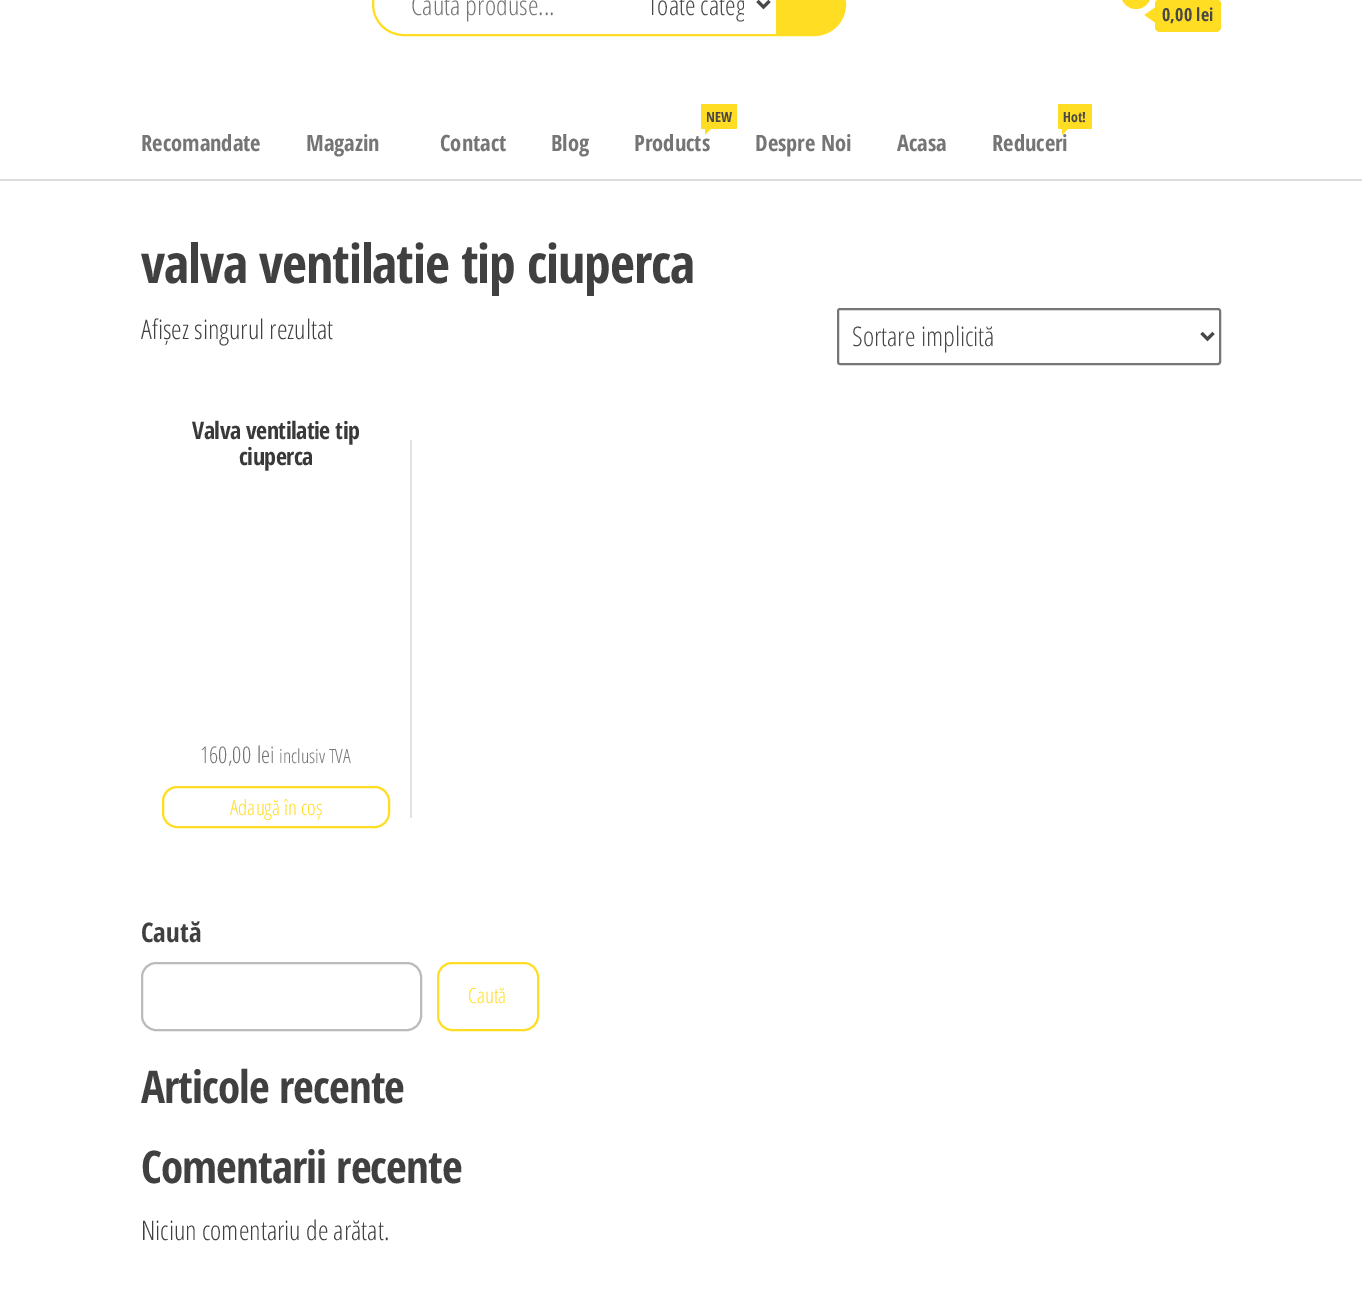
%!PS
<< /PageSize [1362 1291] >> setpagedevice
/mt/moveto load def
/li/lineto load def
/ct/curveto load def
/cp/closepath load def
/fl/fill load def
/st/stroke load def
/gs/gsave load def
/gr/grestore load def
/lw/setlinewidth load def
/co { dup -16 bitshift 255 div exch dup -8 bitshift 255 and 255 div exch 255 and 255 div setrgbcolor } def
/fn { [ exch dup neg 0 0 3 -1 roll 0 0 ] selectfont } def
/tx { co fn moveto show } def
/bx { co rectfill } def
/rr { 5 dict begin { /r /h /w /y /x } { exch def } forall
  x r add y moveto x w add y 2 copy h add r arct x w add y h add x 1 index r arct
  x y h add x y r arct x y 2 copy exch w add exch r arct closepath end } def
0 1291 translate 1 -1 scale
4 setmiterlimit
0 0 1362 1291 16#FFFFFF bx
16#FFDD22 co
2 lw
373 -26 472 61 30.5 rr st
16#484848 co
3 lw
757.5 1 mt 763.5 7 li 769.5 1 li st
16#FFDD22 co
776 -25 mt 815 -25 li 831.5 -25 845 -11.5 845 5 ct 845 21.5 831.5 35 815 35 ct 776 35 li cp fl
1121 -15 30 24 15 rr fl
1155 -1 66 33 5 rr fl
1155 7.5 mt 1155 22.5 li 1144.5 15 li cp fl
0 179 1362 2 16#DDDDDD bx
16#FFDD22 co
701 104 36 25 1.5 rr fl
1058 104 34 25 1.5 rr fl
16#767676 co
2 lw
838 309 382 55 2 rr st
16#484848 co
3 lw
1201.5 333 mt 1207.5 339 li 1213.5 333 li st
410 440 2 378 16#E2E2E2 bx
16#FFDD22 co
2 lw
163 787 226 40 14 rr st
16#BBBBBB co
142 963 279 67 14 rr st
16#FFDD22 co
438 963 100 67 14 rr st
(Caută produse...) 411 15 /OpenSansCondensed-Light 27 16#757575 tx
gs
648 0 96 24 rectclip
(Toate categ) 648 15 /OpenSansCondensed-Light 27 16#484848 tx
gr
(0,00 lei) 1162 21 /OpenSansCondensed-Bold 18 16#484848 tx
(Recomandate) 141 151 /OpenSansCondensed-Bold 22.5 16#757575 tx
(Magazin) 306 151 /OpenSansCondensed-Bold 22.5 16#757575 tx
(Contact) 440 151 /OpenSansCondensed-Bold 22.5 16#757575 tx
(Blog) 551 151 /OpenSansCondensed-Bold 22.5 16#757575 tx
(NEW) 706 122 /OpenSansCondensed-Bold 14 16#484848 tx
(Products) 634 151 /OpenSansCondensed-Bold 22.5 16#757575 tx
16#FFDD22 co
705 127.5 mt 712.5 127.5 li 705 135 li cp fl
(Despre Noi) 755 151 /OpenSansCondensed-Bold 22.5 16#757575 tx
(Acasa) 897 151 /OpenSansCondensed-Bold 22.5 16#757575 tx
(Hot!) 1063 122 /OpenSansCondensed-Bold 14 16#484848 tx
(Reduceri) 992 151 /OpenSansCondensed-Bold 22.5 16#757575 tx
16#FFDD22 co
1062 127.5 mt 1069.5 127.5 li 1062 135 li cp fl
/OpenSansCondensed-Bold 54 fn
16#404040 co
141 283 mt -1.1 0 (valva ventilatie tip ciuperca) ashow
(Afișez singurul rezultat) 141 339 /OpenSansCondensed-Light 27 16#404040 tx
(Sortare implicită) 852 346 /OpenSansCondensed-Light 27 16#484848 tx
/OpenSansCondensed-Bold 24 fn
16#39393A co
192 439 mt -.5 0 (Valva ventilatie tip) ashow
239 465 mt -.5 0 (ciuperca) ashow
(160,00) 200 763 /OpenSansCondensed-Light 23 16#757575 tx
(lei) 257 763 /OpenSansCondensed-Light 23 16#757575 tx
(inclusiv TVA) 279 763 /OpenSansCondensed-Light 19.5 16#757575 tx
(Adaugă în coș) 230 815 /OpenSansCondensed-Light 21 16#FFDD22 tx
(Caută) 141 942 /OpenSansCondensed-Bold 27 16#404040 tx
(Caută) 468 1003 /OpenSansCondensed-Light 21 16#FFDD22 tx
/OpenSansCondensed-Bold 45 fn
16#404040 co
141 1103 mt -.9 0 (Articole recente) ashow
141 1183 mt -.9 0 (Comentarii recente) ashow
(Niciun comentariu de arătat.) 141 1240 /OpenSansCondensed-Light 27 16#404040 tx
showpage
